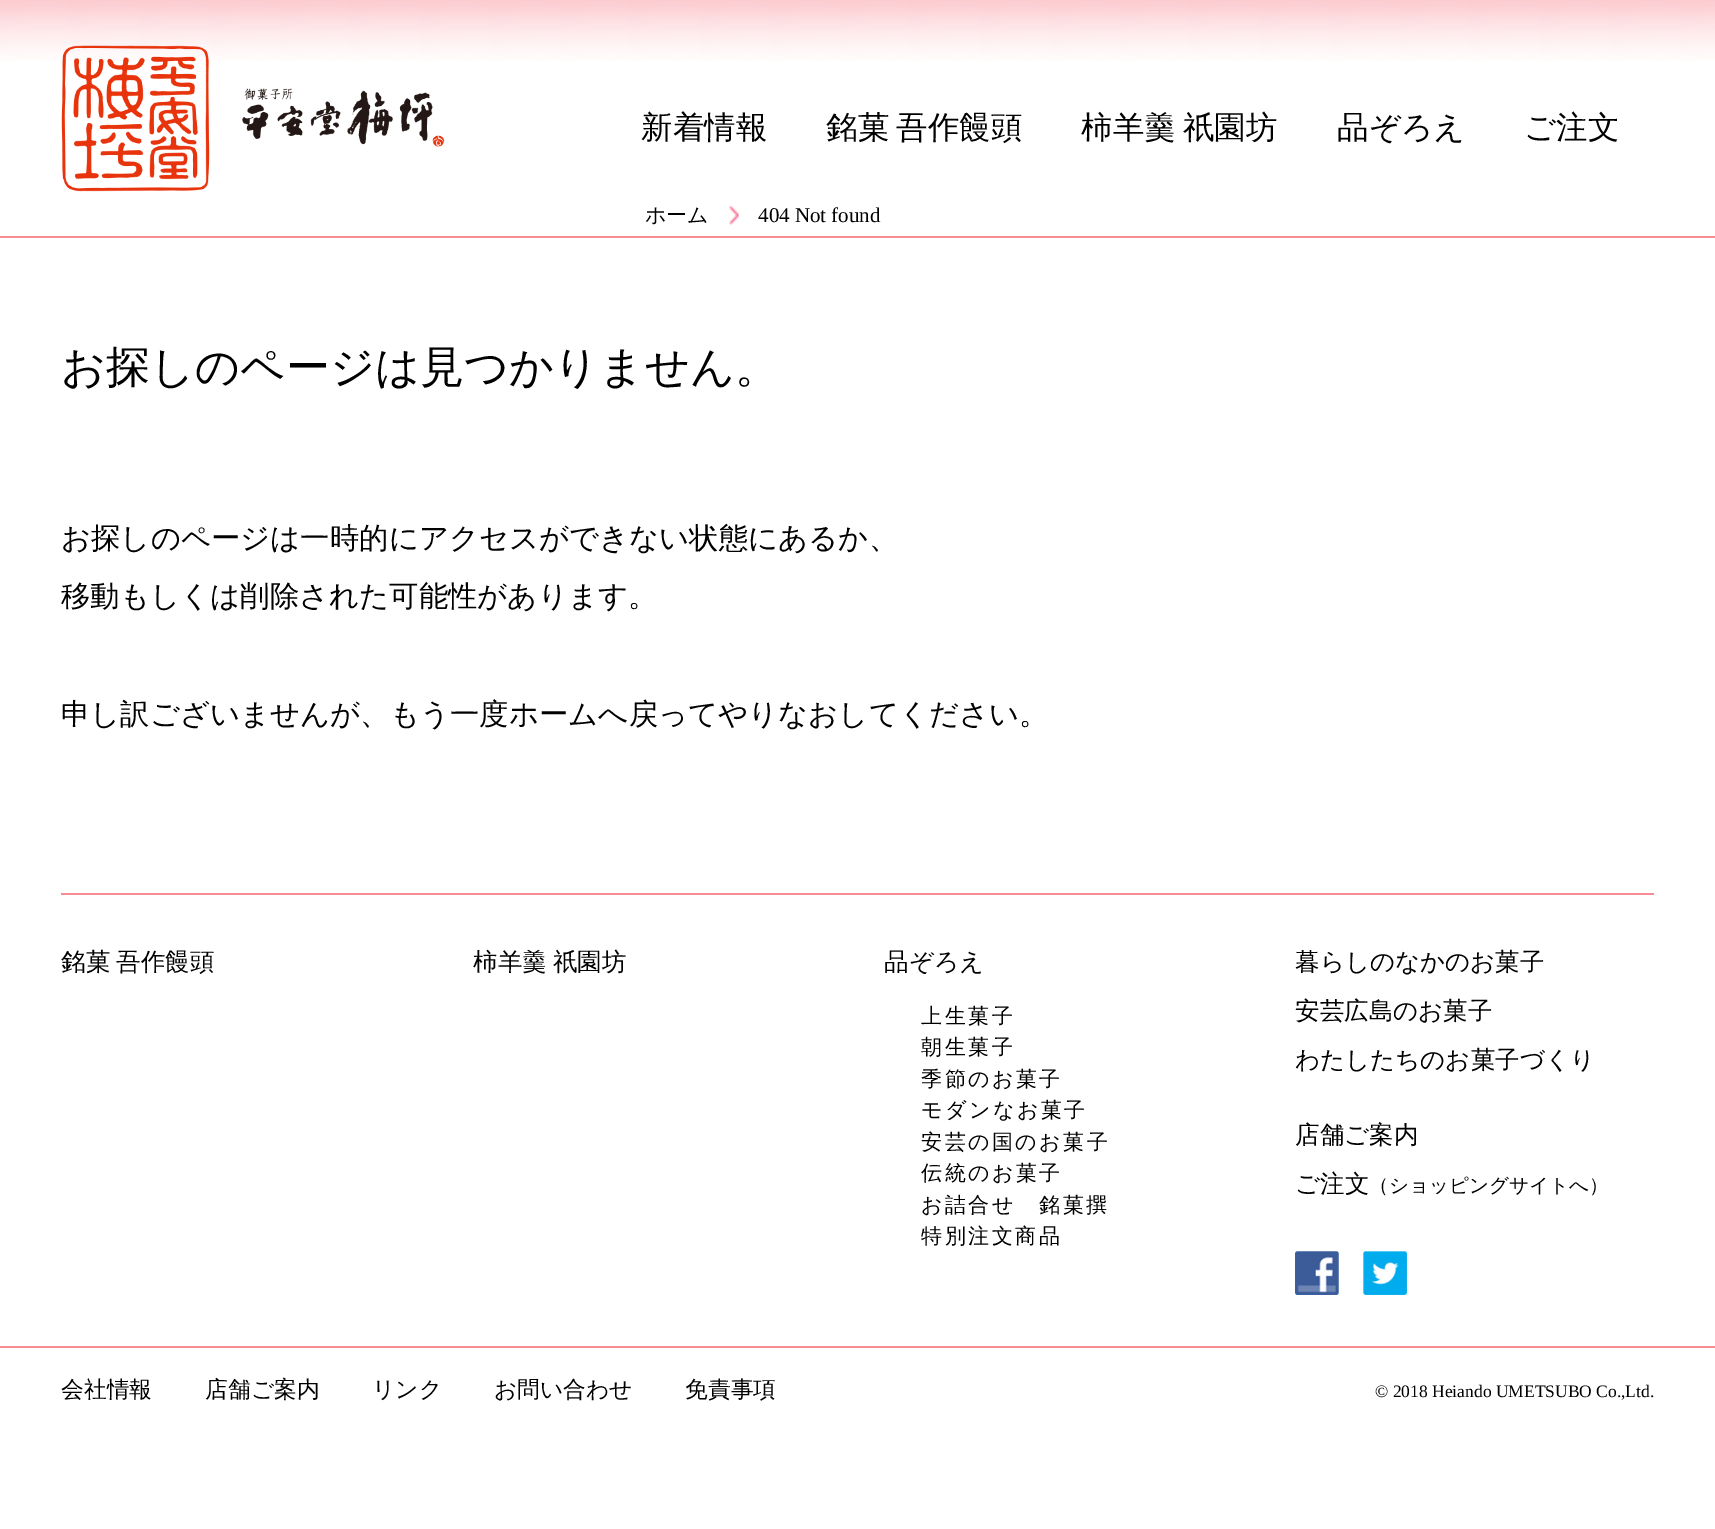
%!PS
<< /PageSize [1715 1529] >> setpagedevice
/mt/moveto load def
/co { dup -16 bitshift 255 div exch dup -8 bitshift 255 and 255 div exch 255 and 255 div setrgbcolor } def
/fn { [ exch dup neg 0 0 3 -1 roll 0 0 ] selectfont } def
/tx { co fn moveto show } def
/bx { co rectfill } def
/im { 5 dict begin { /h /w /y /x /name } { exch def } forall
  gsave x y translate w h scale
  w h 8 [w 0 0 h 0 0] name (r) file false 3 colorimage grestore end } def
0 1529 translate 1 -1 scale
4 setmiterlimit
0 0 1715 1529 16#FFFFFF bx
(media/1.raw) 0 0 1715 61 im
0 236 1715 2 16#F88B94 bx
(media/2.raw) 61 45 384 147 im
(media/3.raw) 729 206 10 19 im
61 893 1593 2 16#F88B94 bx
(media/4.raw) 1295 1251 44 44 im
(media/5.raw) 1363 1251 44 44 im
0 1346 1715 2 16#F88B94 bx
(新着情報) 641 138 /WenQuanYiZenHei-Medium 31.5 16#000000 tx
826 138 mt -2 0 32 (銘菓 吾作饅頭) widthshow
1081 138 mt -2 0 32 (柿羊羹 祇園坊) widthshow
(品ぞろえ) 1337 138 /WenQuanYiZenHei-Medium 31.5 16#000000 tx
(ご注文) 1524 138 /WenQuanYiZenHei-Medium 31.5 16#000000 tx
(ホーム) 645 222 /WenQuanYiZenHei-Medium 21 16#000000 tx
(404 Not found) 758 222 /LiberationSerif-Regular 21 16#000000 tx
(お探しのページは見つかりません。) 61 382 /WenQuanYiZenHei-Medium 44.1 16#000000 tx
(お探しのページは一時的にアクセスができない状態にあるか、) 61 548 /WenQuanYiZenHei-Medium 29.4 16#000000 tx
(移動もしくは削除された可能性があります。) 61 606 /WenQuanYiZenHei-Medium 29.4 16#000000 tx
(申し訳ございませんが、もう一度ホームへ戻ってやりなおしてください。) 61 724 /WenQuanYiZenHei-Medium 29.4 16#000000 tx
/WenQuanYiZenHei-Medium 24.5 fn
61 970 mt -1 0 32 (銘菓 吾作饅頭) widthshow
473 970 mt -1 0 32 (柿羊羹 祇園坊) widthshow
(品ぞろえ) 884 970 /WenQuanYiZenHei-Medium 24.5 16#000000 tx
/WenQuanYiZenHei-Medium 21 fn
921 1023 mt 2.5 0 (上生菓子) ashow
921 1054 mt 2.5 0 (朝生菓子) ashow
921 1086 mt 2.5 0 (季節のお菓子) ashow
921 1117 mt 2.5 0 (モダンなお菓子) ashow
921 1149 mt 2.5 0 (安芸の国のお菓子) ashow
921 1180 mt 2.5 0 (伝統のお菓子) ashow
921 1212 mt 2.5 0 (お詰合せ　銘菓撰) ashow
921 1243 mt 2.5 0 (特別注文商品) ashow
(暮らしのなかのお菓子) 1295 970 /WenQuanYiZenHei-Medium 24.5 16#000000 tx
(安芸広島のお菓子) 1295 1019 /WenQuanYiZenHei-Medium 24.5 16#000000 tx
(わたしたちのお菓子づくり) 1295 1068 /WenQuanYiZenHei-Medium 24.5 16#000000 tx
(店舗ご案内) 1295 1143 /WenQuanYiZenHei-Medium 24.5 16#000000 tx
(ご注文) 1295 1192 /WenQuanYiZenHei-Medium 24.5 16#000000 tx
(（ショッピングサイトへ）) 1369 1192 /WenQuanYiZenHei-Medium 19.6 16#000000 tx
(会社情報) 61 1397 /WenQuanYiZenHei-Medium 22.75 16#000000 tx
(店舗ご案内) 205 1397 /WenQuanYiZenHei-Medium 22.75 16#000000 tx
(リンク) 372 1397 /WenQuanYiZenHei-Medium 22.75 16#000000 tx
(お問い合わせ) 494 1397 /WenQuanYiZenHei-Medium 22.75 16#000000 tx
(免責事項) 685 1397 /WenQuanYiZenHei-Medium 22.75 16#000000 tx
(© 2018 Heiando UMETSUBO Co.,Ltd.) 1375 1397 /LiberationSerif-Regular 17.5 16#000000 tx
showpage
